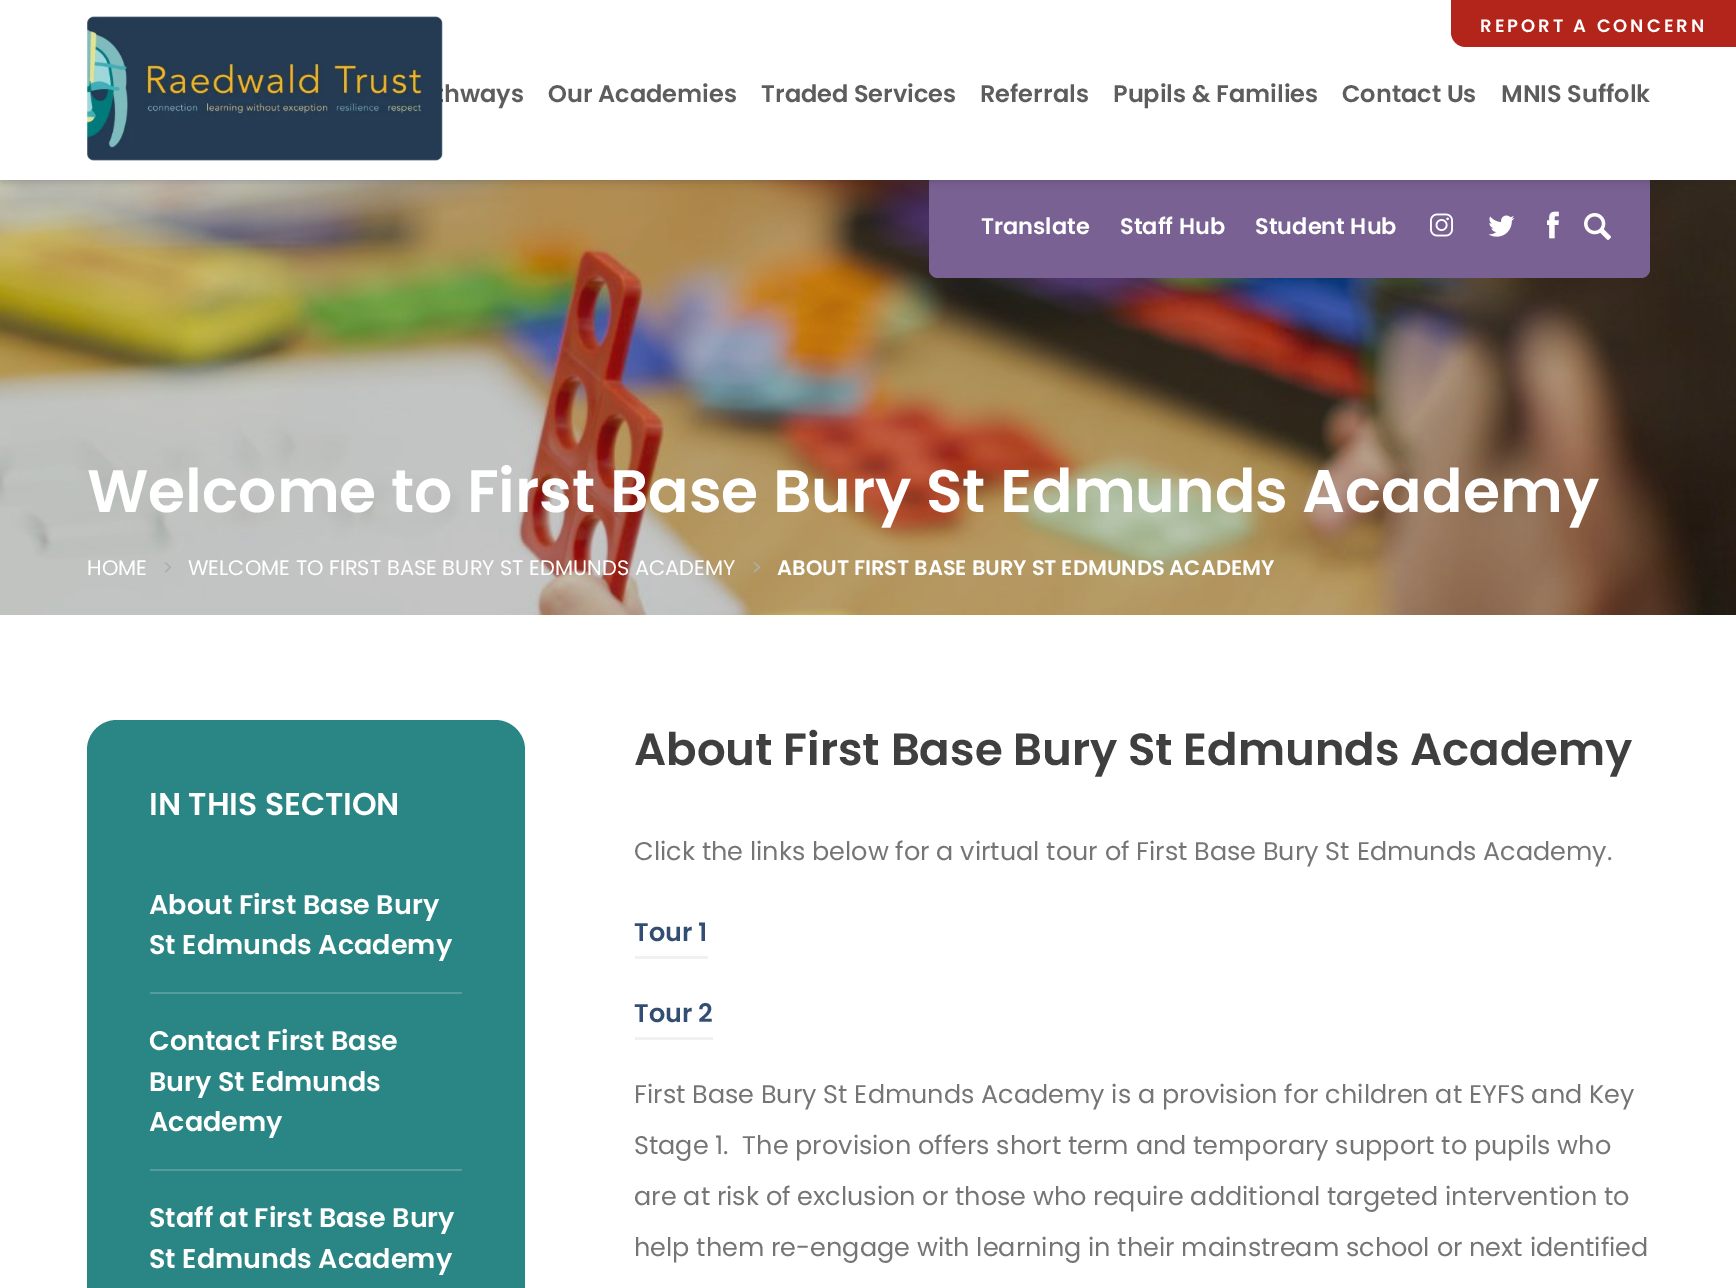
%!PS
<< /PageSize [1736 1288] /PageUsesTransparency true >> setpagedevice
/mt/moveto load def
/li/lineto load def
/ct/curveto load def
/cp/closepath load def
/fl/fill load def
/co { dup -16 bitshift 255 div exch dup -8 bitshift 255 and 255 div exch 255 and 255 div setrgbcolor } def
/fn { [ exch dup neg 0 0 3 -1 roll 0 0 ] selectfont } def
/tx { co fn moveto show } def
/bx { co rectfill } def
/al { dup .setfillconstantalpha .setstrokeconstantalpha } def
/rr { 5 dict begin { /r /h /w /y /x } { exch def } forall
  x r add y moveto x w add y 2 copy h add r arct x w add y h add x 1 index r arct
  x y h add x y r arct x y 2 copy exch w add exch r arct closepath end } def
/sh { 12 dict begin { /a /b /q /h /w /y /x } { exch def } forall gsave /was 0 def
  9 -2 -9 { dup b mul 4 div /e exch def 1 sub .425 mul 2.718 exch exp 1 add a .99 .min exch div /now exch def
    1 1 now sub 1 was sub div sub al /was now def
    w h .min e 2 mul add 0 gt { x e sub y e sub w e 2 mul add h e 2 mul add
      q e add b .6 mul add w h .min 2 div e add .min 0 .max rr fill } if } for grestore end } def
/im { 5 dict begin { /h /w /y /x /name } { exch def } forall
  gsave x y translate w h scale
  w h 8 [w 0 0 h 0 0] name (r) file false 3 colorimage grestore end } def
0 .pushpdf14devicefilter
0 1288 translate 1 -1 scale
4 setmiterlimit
0 0 1736 1288 16#FFFFFF bx
(media/1.raw) 0 180 1736 435 im
0.26 al
0 180 1736 435 16#272727 bx
1 al
16#796193 co
929 146 mt 1650 146 li 1650 269 li 1650 274 1646 278 1641 278 ct 938 278 li 933 278 929 274 929 269 ct cp fl
16#1A1A1A co
2 0 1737 180 0 5 .3 sh
0 0 1736 180 16#FFFFFF bx
(media/2.raw) 87 16 356 145 im
16#B3251A co
1451 0 mt 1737 0 li 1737 47 li 1466 47 li 1457.5 47 1451 40.5 1451 32 ct cp fl
(media/3.raw) 1430 213 23 24 im
(media/4.raw) 1488 215 27 22 im
(media/5.raw) 1547 211 12 28 im
(media/6.raw) 1584 213 27 27 im
16#2A8585 co
87 720 438 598 30 rr fl
150 992 312 2 16#559D9D bx
150 1169 312 2 16#559D9D bx
635 956 73 3 16#F1F1F1 bx
635 1037 78 3 16#F1F1F1 bx
/Poppins-SemiBold 18 fn
16#FFFFFF co
1480 32 mt 3 0 (REPORT A CONCERN) ashow
(hways) 444 102 /Poppins-SemiBold 24 16#5D5D5D tx
(Our Academies) 548 102 /Poppins-SemiBold 24 16#5D5D5D tx
(Traded Services) 761 102 /Poppins-SemiBold 24 16#5D5D5D tx
(Referrals) 980 102 /Poppins-SemiBold 24 16#5D5D5D tx
(Pupils & Families) 1113 102 /Poppins-SemiBold 24 16#5D5D5D tx
(Contact Us) 1342 102 /Poppins-SemiBold 24 16#5D5D5D tx
(MNIS Suffolk) 1501 102 /Poppins-SemiBold 24 16#5D5D5D tx
(Translate) 981 234 /Poppins-SemiBold 22.5 16#FFFFFF tx
(Staff Hub) 1120 234 /Poppins-SemiBold 22.5 16#FFFFFF tx
(Student Hub) 1255 234 /Poppins-SemiBold 22.5 16#FFFFFF tx
(Welcome to First Base Bury St Edmunds Academy) 87 512 /Poppins-SemiBold 60 16#FFFFFF tx
(HOME) 87 575 /Poppins-Regular 21 16#FFFFFF tx
(>) 162 575 /Poppins-Regular 21 16#ADADAD tx
(WELCOME TO FIRST BASE BURY ST EDMUNDS ACADEMY) 188 575 /Poppins-Regular 21 16#FFFFFF tx
(>) 751 575 /Poppins-Regular 21 16#ADADAD tx
(ABOUT FIRST BASE BURY ST EDMUNDS ACADEMY) 777 575 /Poppins-SemiBold 21 16#FFFFFF tx
(IN THIS SECTION) 149 815 /Poppins-SemiBold 31.5 16#FFFFFF tx
(About First Base Bury) 149 914 /Poppins-SemiBold 27 16#FFFFFF tx
(St Edmunds Academy) 149 954 /Poppins-SemiBold 27 16#FFFFFF tx
(Contact First Base) 149 1050 /Poppins-SemiBold 27 16#FFFFFF tx
(Bury St Edmunds) 149 1091 /Poppins-SemiBold 27 16#FFFFFF tx
(Academy) 149 1131 /Poppins-SemiBold 27 16#FFFFFF tx
(Staff at First Base Bury) 149 1227 /Poppins-SemiBold 27 16#FFFFFF tx
(St Edmunds Academy) 149 1268 /Poppins-SemiBold 27 16#FFFFFF tx
(About First Base Bury St Edmunds Academy) 634 765 /Poppins-SemiBold 45 16#3F3F3F tx
(Click the links below for a virtual tour of First Base Bury St Edmunds Academy.) 634 860 /Poppins-Regular 25.5 16#757575 tx
(Tour 1) 634 941 /Poppins-SemiBold 25.5 16#324E72 tx
(Tour 2) 634 1022 /Poppins-SemiBold 25.5 16#324E72 tx
(First Base Bury St Edmunds Academy is a provision for children at EYFS and Key) 634 1103 /Poppins-Regular 25.5 16#757575 tx
(Stage 1.  The provision offers short term and temporary support to pupils who) 634 1154 /Poppins-Regular 25.5 16#757575 tx
(are at risk of exclusion or those who require additional targeted intervention to) 634 1205 /Poppins-Regular 25.5 16#757575 tx
(help them re-engage with learning in their mainstream school or next identified) 634 1256 /Poppins-Regular 25.5 16#757575 tx
.poppdf14devicefilter showpage
